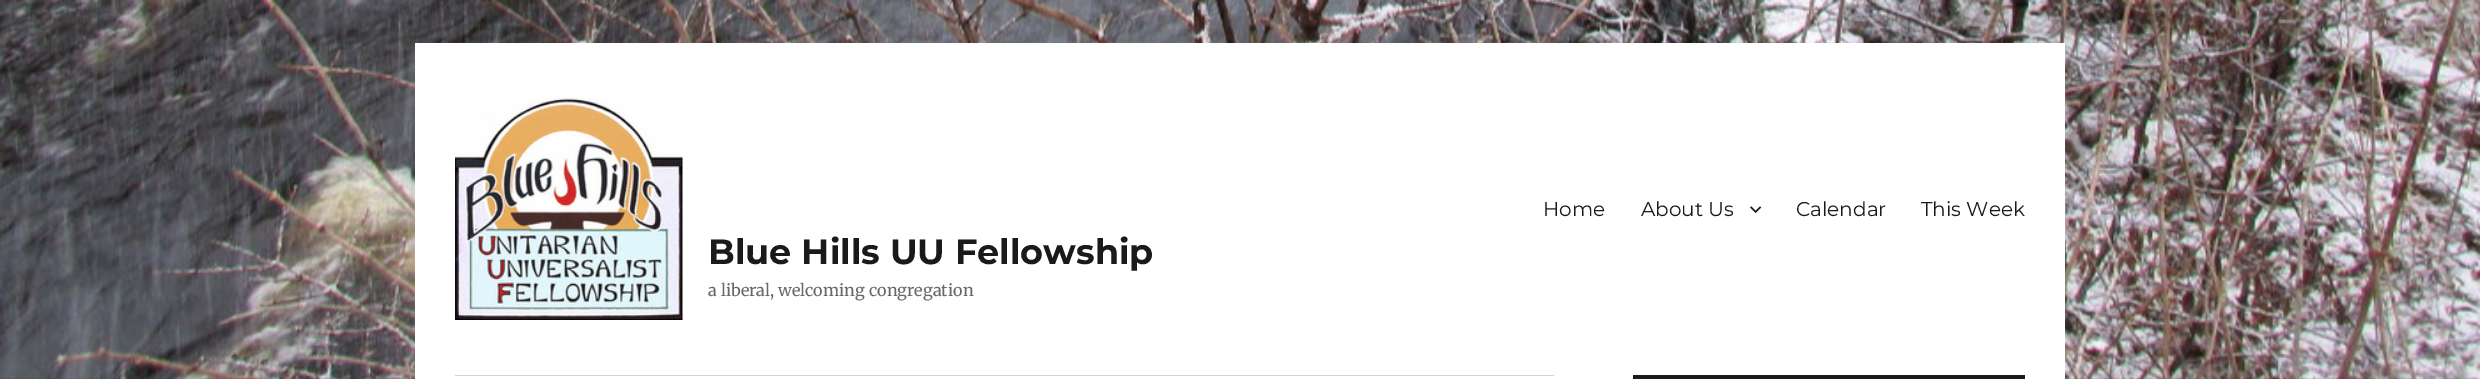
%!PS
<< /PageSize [2480 379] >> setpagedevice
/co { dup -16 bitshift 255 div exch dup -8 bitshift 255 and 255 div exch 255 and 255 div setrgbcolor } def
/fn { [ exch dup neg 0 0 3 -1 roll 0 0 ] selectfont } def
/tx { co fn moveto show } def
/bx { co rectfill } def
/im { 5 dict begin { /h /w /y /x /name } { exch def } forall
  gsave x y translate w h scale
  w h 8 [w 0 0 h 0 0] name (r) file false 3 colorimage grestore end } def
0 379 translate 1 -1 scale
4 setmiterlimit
0 0 2480 379 16#FFFFFF bx
(media/1.raw) 0 0 2480 379 im
415 43 1650 336 16#FFFFFF bx
(media/2.raw) 1750 206 12 7 im
(media/3.raw) 455 98 228 222 im
455 375 1099 1 16#D1D1D1 bx
1633 375 392 4 16#1A1A1A bx
(Home) 1543 216 /Montserrat-Regular 20 16#1A1A1A tx
(About Us) 1641 216 /Montserrat-Regular 20 16#1A1A1A tx
(Calendar) 1796 216 /Montserrat-Regular 20 16#1A1A1A tx
(This Week) 1921 216 /Montserrat-Regular 20 16#1A1A1A tx
(Blue Hills UU Fellowship) 708 264 /Montserrat-Bold 35 16#1A1A1A tx
(a liberal, welcoming congregation) 708 296 /Merriweather-Regular 16.25 16#686868 tx
showpage
